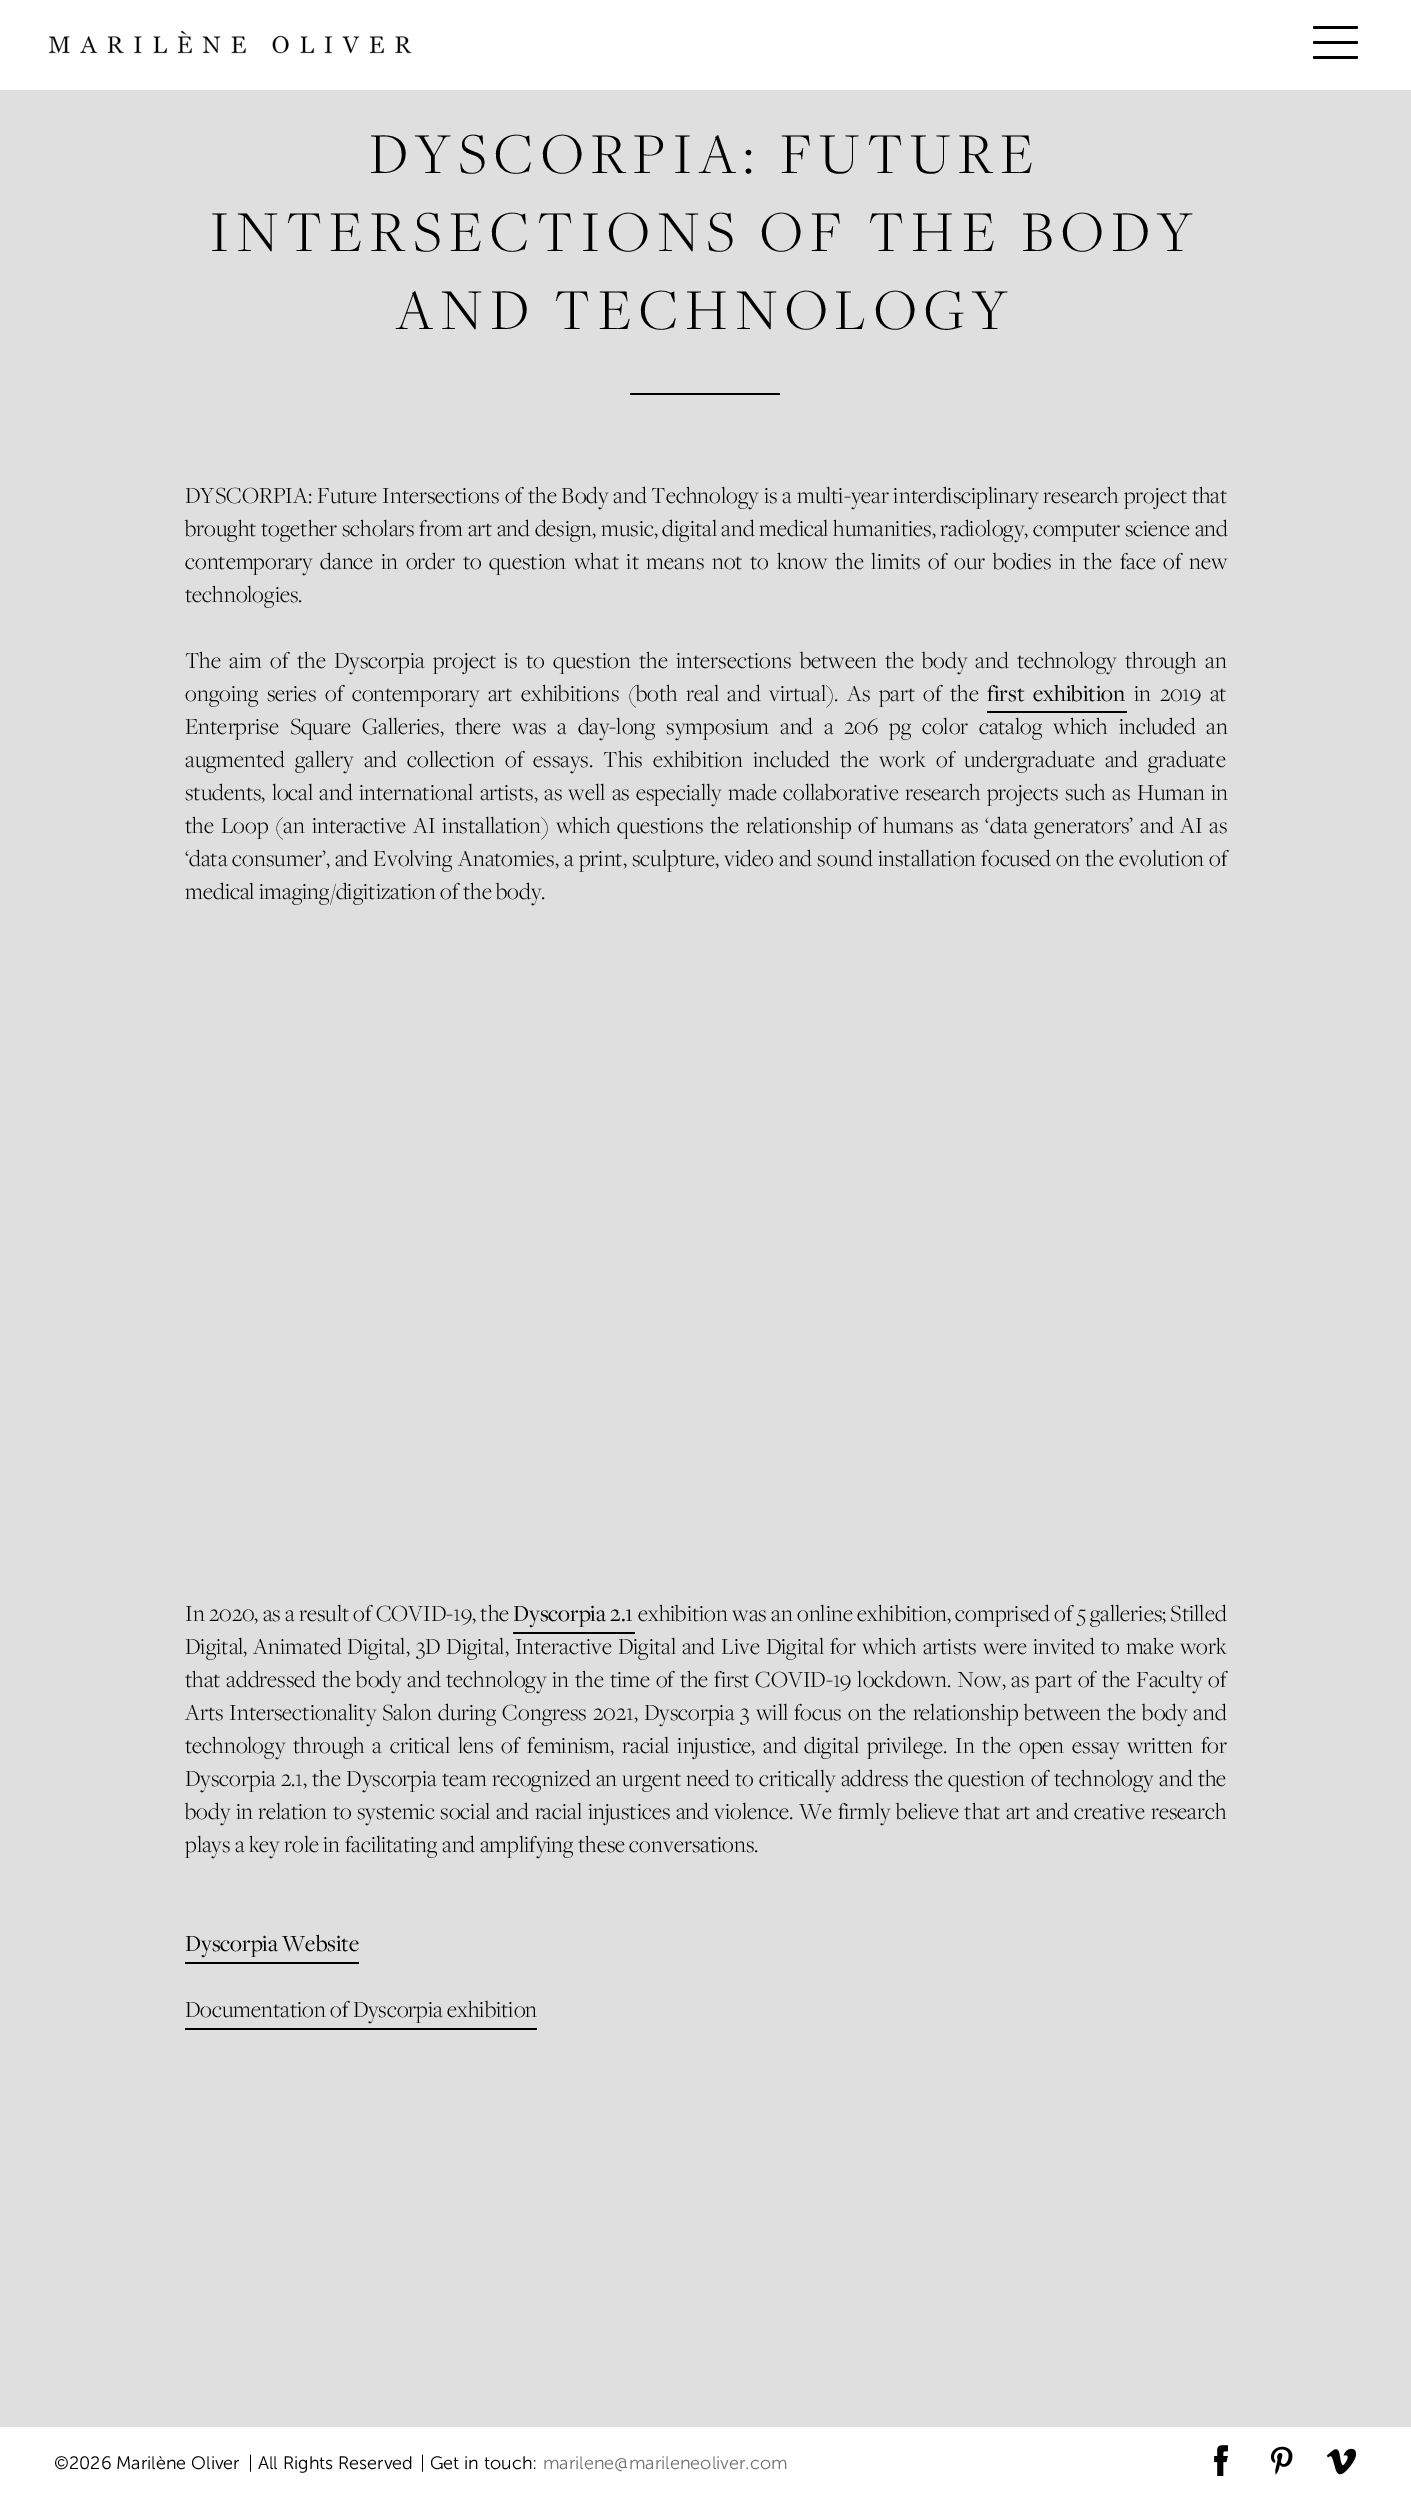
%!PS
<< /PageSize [1411 2502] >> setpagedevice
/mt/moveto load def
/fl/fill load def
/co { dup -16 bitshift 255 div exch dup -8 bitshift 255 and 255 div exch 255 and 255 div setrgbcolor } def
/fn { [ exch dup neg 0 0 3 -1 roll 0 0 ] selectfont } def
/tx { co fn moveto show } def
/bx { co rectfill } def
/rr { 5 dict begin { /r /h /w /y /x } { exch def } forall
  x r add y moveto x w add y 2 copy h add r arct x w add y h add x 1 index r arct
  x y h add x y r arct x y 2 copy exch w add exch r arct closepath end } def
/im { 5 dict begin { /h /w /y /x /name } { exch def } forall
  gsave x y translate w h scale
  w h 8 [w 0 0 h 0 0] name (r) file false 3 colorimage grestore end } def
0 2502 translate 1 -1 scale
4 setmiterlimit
0 0 1411 2502 16#E0DFDF bx
0 0 1411 90 16#FFFFFF bx
(media/1.raw) 48 30 364 24 im
16#000000 co
1313 41 45 3 1.5 rr fl
1313 26 45 3 1.5 rr fl
1313 56 45 3 1.5 rr fl
630 393 150 2 16#000000 bx
987 711 140 2 16#000000 bx
513 1632 122 2 16#000000 bx
185 1962 174 2 16#000000 bx
185 2028 352 2 16#000000 bx
0 2427 1411 75 16#FFFFFF bx
(media/2.raw) 1214 2445 14 31 im
(media/3.raw) 1270 2446 23 29 im
(media/4.raw) 1326 2448 31 27 im
/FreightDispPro-Light 60 fn
16#000000 co
369 173 mt 7.5 0 (DYSCORPIA: FUTURE) ashow
210 251 mt 7.5 0 (INTERSECTIONS OF THE BODY) ashow
396 329 mt 7.5 0 (AND TECHNOLOGY) ashow
/FreightDispPro-Light 24 fn
185 503 mt .6 0 32 (DYSCORPIA: Future Intersections of the Body and Technology is a multi-year interdisciplinary research project that) widthshow
185 536 mt .25 0 32 (brought together scholars from art and design, music, digital and medical humanities, radiology, computer science and) widthshow
185 569 mt 3.3 0 32 (contemporary dance in order to question what it means not to know the limits of our bodies in the face of new) widthshow
(technologies.) 185 602 /FreightDispPro-Light 24 16#000000 tx
185 668 mt 4 0 32 (The aim of the Dyscorpia project is to question the intersections between the body and technology through an) widthshow
185 701 mt 4.1 0 32 (ongoing series of contemporary art exhibitions \(both real and virtual\). As part of the) widthshow
/FreightDispPro-Regular 24 fn
987 701 mt 4.1 0 32 (first exhibition) widthshow
/FreightDispPro-Light 24 fn
1134 701 mt 4.1 0 32 (in 2019 at) widthshow
185 734 mt 6.4 0 32 (Enterprise Square Galleries, there was a day-long symposium and a 206 pg color catalog which included an) widthshow
185 767 mt 5.75 0 32 (augmented gallery and collection of essays. This exhibition included the work of undergraduate and graduate) widthshow
185 800 mt 2 0 32 (students, local and international artists, as well as especially made collaborative research projects such as Human in) widthshow
185 833 mt 2.5 0 32 (the Loop \(an interactive AI installation\) which questions the relationship of humans as ‘data generators’ and AI as) widthshow
185 866 mt 1 0 32 (‘data consumer’, and Evolving Anatomies, a print, sculpture, video and sound installation focused on the evolution of) widthshow
(medical imaging/digitization of the body.) 185 899 /FreightDispPro-Light 24 16#000000 tx
(In 2020, as a result of COVID-19, the) 185 1621 /FreightDispPro-Light 24 16#000000 tx
(Dyscorpia 2.1) 513 1621 /FreightDispPro-Regular 24 16#000000 tx
(exhibition was an online exhibition, comprised of 5 galleries; Stilled) 638 1621 /FreightDispPro-Light 24 16#000000 tx
185 1654 mt 1.6 0 32 (Digital, Animated Digital, 3D Digital, Interactive Digital and Live Digital for which artists were invited to make work) widthshow
185 1687 mt 1.5 0 32 (that addressed the body and technology in the time of the first COVID-19 lockdown. Now, as part of the Faculty of) widthshow
185 1720 mt 1.8 0 32 (Arts Intersectionality Salon during Congress 2021, Dyscorpia 3 will focus on the relationship between the body and) widthshow
185 1753 mt 3.5 0 32 (technology through a critical lens of feminism, racial injustice, and digital privilege. In the open essay written for) widthshow
185 1786 mt 1 0 32 (Dyscorpia 2.1, the Dyscorpia team recognized an urgent need to critically address the question of technology and the) widthshow
185 1819 mt 1.25 0 32 (body in relation to systemic social and racial injustices and violence. We firmly believe that art and creative research) widthshow
(plays a key role in facilitating and amplifying these conversations.) 185 1852 /FreightDispPro-Light 24 16#000000 tx
(Dyscorpia Website) 185 1951 /FreightDispPro-Regular 24 16#000000 tx
(Documentation of Dyscorpia exhibition) 185 2017 /FreightDispPro-Light 24 16#000000 tx
(©2026 Marilène Oliver) 54 2469 /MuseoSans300-Light 18 16#000000 tx
(| All Rights Reserved) 248 2469 /MuseoSans300-Light 18 16#000000 tx
(| Get in touch:) 420 2469 /MuseoSans300-Light 18 16#000000 tx
(marilene@marileneoliver.com) 543 2469 /MuseoSans300-Light 18 16#727272 tx
showpage
